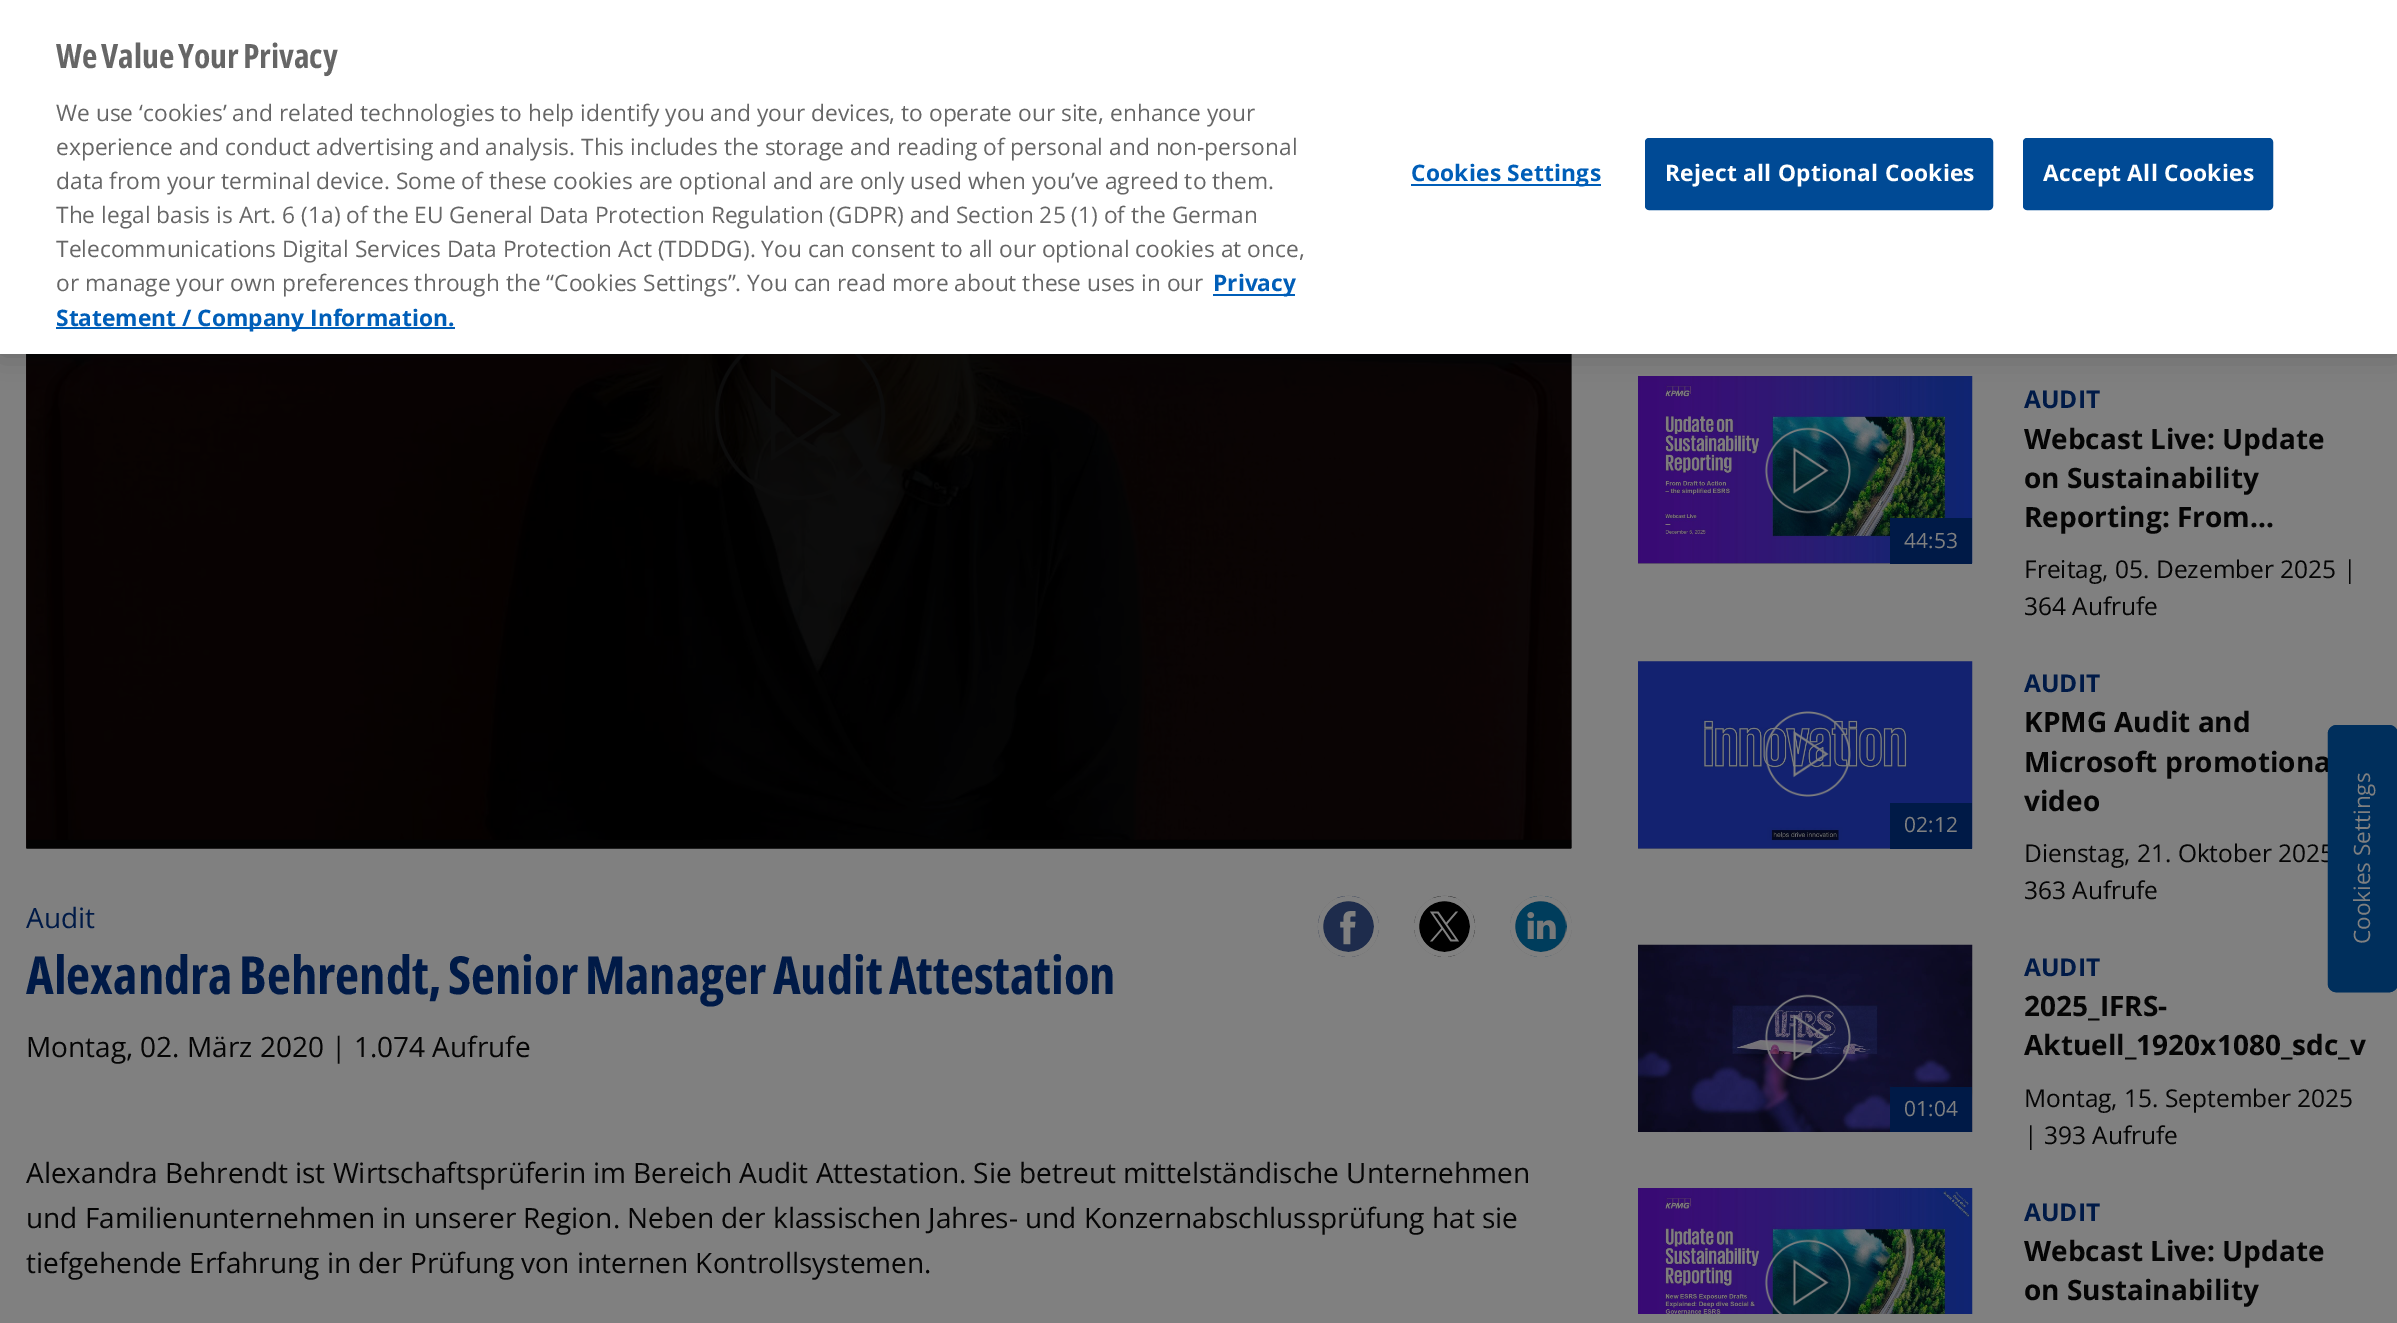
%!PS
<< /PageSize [2397 1323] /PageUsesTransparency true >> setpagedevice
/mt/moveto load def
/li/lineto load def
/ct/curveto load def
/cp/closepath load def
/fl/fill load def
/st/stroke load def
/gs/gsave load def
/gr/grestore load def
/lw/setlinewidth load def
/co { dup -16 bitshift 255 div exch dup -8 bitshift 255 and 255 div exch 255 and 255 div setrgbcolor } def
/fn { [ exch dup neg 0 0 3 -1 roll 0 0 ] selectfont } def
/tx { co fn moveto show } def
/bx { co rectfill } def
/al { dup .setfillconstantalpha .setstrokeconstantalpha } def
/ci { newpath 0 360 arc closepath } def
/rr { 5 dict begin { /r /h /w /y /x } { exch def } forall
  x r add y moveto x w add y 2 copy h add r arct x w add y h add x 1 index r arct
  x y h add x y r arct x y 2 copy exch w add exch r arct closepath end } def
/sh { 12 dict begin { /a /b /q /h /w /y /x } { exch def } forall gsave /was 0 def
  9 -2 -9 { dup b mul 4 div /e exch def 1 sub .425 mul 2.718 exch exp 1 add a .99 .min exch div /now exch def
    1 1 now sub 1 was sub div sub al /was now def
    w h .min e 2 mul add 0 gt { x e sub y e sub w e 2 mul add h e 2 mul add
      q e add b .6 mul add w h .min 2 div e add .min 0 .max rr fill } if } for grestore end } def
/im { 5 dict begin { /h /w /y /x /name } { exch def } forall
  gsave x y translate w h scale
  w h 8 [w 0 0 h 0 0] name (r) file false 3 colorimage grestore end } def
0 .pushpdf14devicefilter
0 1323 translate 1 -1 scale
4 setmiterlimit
0 0 2397 1323 16#808080 bx
(media/1.raw) 26 354 1546 495 im
1638 563 252 1 16#666666 bx
(media/5.raw) 1638 376 335 188 im
16#000000 co
0 0 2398 354 0 16 .2 sh
0 0 2397 354 16#FFFFFF bx
1213 294 82 2 16#005EB8 bx
56 327 399 2 16#005EB8 bx
1411 184 190 2 16#005EB8 bx
16#004A95 co
1646 139 346 70 3 rr gs fl gr
2 lw
st
2024 139 248 70 3 rr gs fl gr
st
16#656565 co
1348.5 926.5 30.5 ci fl
(media/2.raw) 1317 895 62 62 im
16#808080 co
5 lw
1348.5 926.5 28 ci st
(media/3.raw) 1414 895 62 62 im
1444.5 926.5 28 ci st
16#656565 co
1510 896 62 61 30.5 rr fl
(media/4.raw) 1510 895 62 62 im
16#808080 co
1512.5 898.5 57 56 28 rr st
(media/6.raw) 1764 427 87 87 im
1890 518 82 46 16#001A47 bx
1638 848 252 1 16#666666 bx
(media/7.raw) 1638 661 335 188 im
(media/8.raw) 1765 711 86 86 im
1890 803 82 46 16#001A47 bx
(media/9.raw) 1638 944 335 188 im
(media/10.raw) 1764 994 87 87 im
1890 1087 82 45 16#001A47 bx
(media/11.raw) 1638 1188 335 126 im
(media/12.raw) 1764 1239 87 75 im
/OpenSans-Bold 33.5 fn
16#666666 co
56 68 mt -2 0 32 (We Value Your Privacy) widthshow
(We use ‘cookies’ and related technologies to help identify you and your devices, to operate our site, enhance your) 56 121 /OpenSans-Regular 22.75 16#666666 tx
(experience and conduct advertising and analysis. This includes the storage and reading of personal and non-personal) 56 155 /OpenSans-Regular 22.75 16#666666 tx
(data from your terminal device. Some of these cookies are optional and are only used when you’ve agreed to them.) 56 189 /OpenSans-Regular 22.75 16#666666 tx
(The legal basis is Art. 6 \(1a\) of the EU General Data Protection Regulation \(GDPR\) and Section 25 \(1\) of the German) 56 223 /OpenSans-Regular 22.75 16#666666 tx
(Telecommunications Digital Services Data Protection Act \(TDDDG\). You can consent to all our optional cookies at once,) 56 257 /OpenSans-Regular 22.75 16#666666 tx
(or manage your own preferences through the “Cookies Settings”. You can read more about these uses in our) 56 291 /OpenSans-Regular 22.75 16#666666 tx
(Privacy) 1213 291 /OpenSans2-Bold 22.75 16#005EB8 tx
(Statement / Company Information.) 56 326 /OpenSans2-Bold 22.75 16#005EB8 tx
1411 181 mt .25 0 (Cookies Settings) ashow
16#FFFFFF co
1665 181 mt .25 0 (Reject all Optional Cookies) ashow
2043 181 mt .25 0 (Accept All Cookies) ashow
(Audit) 26 928 /OpenSans-Regular 28 16#001A47 tx
/OpenSans-Bold 52.5 fn
26 994 mt -3 0 32 (Alexandra Behrendt, Senior Manager Audit Attestation) widthshow
(Montag, 02. März 2020 | 1.074 Aufrufe) 26 1057 /OpenSans-Regular 28 16#050505 tx
(Alexandra Behrendt ist Wirtschaftsprüferin im Bereich Audit Attestation. Sie betreut mittelständische Unternehmen) 26 1183 /OpenSans-Regular 28 16#050505 tx
(und Familienunternehmen in unserer Region. Neben der klassischen Jahres- und Konzernabschlussprüfung hat sie) 26 1228 /OpenSans-Regular 28 16#050505 tx
(tiefgehende Erfahrung in der Prüfung von internen Kontrollsystemen.) 26 1273 /OpenSans-Regular 28 16#050505 tx
(44:53) 1904 548 /OpenSans-Regular 21 16#808080 tx
(AUDIT) 2024 408 /OpenSans2-Bold 24.5 16#001A47 tx
(Webcast Live: Update) 2024 449 /OpenSans2-Bold 28 16#050505 tx
(on Sustainability) 2024 488 /OpenSans2-Bold 28 16#050505 tx
(Reporting: From...) 2024 527 /OpenSans2-Bold 28 16#050505 tx
(Freitag, 05. Dezember 2025 |) 2024 578 /OpenSans-Regular 24.5 16#050505 tx
(364 Aufrufe) 2024 615 /OpenSans-Regular 24.5 16#050505 tx
(02:12) 1904 832 /OpenSans-Regular 21 16#808080 tx
(AUDIT) 2024 692 /OpenSans2-Bold 24.5 16#001A47 tx
(KPMG Audit and) 2024 732 /OpenSans2-Bold 28 16#050505 tx
(Microsoft promotiona) 2024 772 /OpenSans2-Bold 28 16#050505 tx
(video) 2024 811 /OpenSans2-Bold 28 16#050505 tx
(Dienstag, 21. Oktober 2025) 2024 862 /OpenSans-Regular 24.5 16#050505 tx
(363 Aufrufe) 2024 899 /OpenSans-Regular 24.5 16#050505 tx
(01:04) 1904 1116 /OpenSans-Regular 21 16#808080 tx
(AUDIT) 2024 976 /OpenSans2-Bold 24.5 16#001A47 tx
(2025_IFRS-) 2024 1016 /OpenSans2-Bold 28 16#050505 tx
(Aktuell_1920x1080_sdc_v) 2024 1055 /OpenSans2-Bold 28 16#050505 tx
(Montag, 15. September 2025) 2024 1107 /OpenSans-Regular 24.5 16#050505 tx
(| 393 Aufrufe) 2024 1144 /OpenSans-Regular 24.5 16#050505 tx
(AUDIT) 2024 1221 /OpenSans2-Bold 24.5 16#001A47 tx
(Webcast Live: Update) 2024 1261 /OpenSans2-Bold 28 16#050505 tx
(on Sustainability) 2024 1300 /OpenSans2-Bold 28 16#050505 tx
16#002F5C co
2328 984 mt 2328 734 li 2328 729 2332 725 2337 725 ct 2389 725 li 2394 725 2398 729 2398 734 ct 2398 984 li 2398 988 2394 992 2389 992 ct 2337 992 li 2332 992 2328 988 2328 984 ct cp fl
3.5 lw
2329.5 983.5 mt 2329.5 734 li 2329.5 730 2332.5 727 2336.5 727 ct 2389 727 li 2392.5 727 2396 730 2396 734 ct 2396 983.5 li 2396 987.5 2392.5 990.5 2389 990.5 ct 2336.5 990.5 li 2332.5 990.5 2329.5 987.5 2329.5 983.5 ct cp st
/OpenSans-Regular 22.5 fn
16#808080 co
gs 2370 944 translate -90 rotate 0 0 mt (Cookies Settings) show gr
.poppdf14devicefilter showpage
